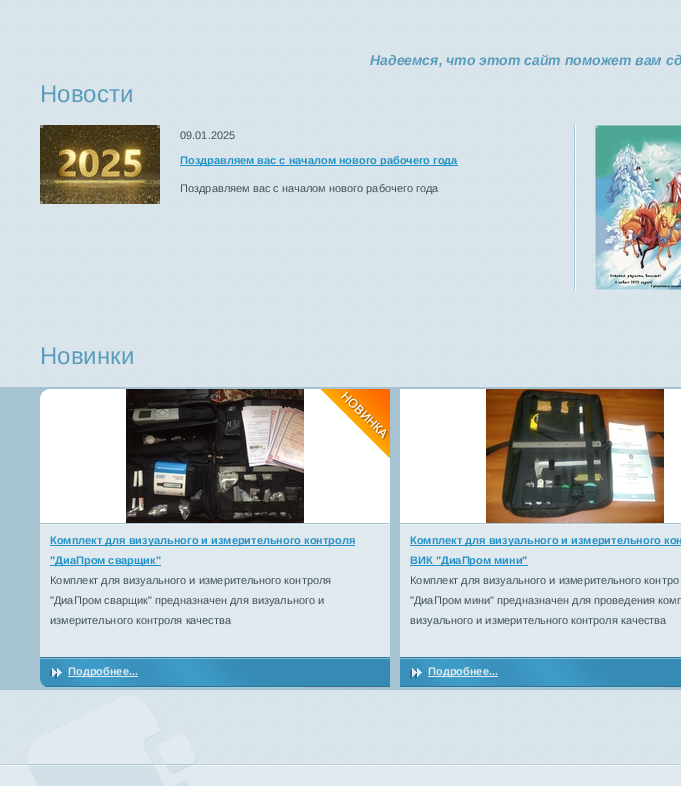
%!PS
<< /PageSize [681 786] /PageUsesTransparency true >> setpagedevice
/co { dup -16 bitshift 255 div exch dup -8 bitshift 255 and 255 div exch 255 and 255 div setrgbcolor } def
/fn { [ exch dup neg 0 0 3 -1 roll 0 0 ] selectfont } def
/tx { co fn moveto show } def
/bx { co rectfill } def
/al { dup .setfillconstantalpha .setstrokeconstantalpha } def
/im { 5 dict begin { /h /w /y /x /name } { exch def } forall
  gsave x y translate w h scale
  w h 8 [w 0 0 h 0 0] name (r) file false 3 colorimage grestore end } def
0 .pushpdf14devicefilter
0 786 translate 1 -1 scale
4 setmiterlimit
0 0 681 786 16#FFFFFF bx
(media/1.raw) 0 0 681 764 im
(media/2.raw) 574 125 2 165 im
(media/3.raw) 40 125 120 79 im
0.42 al
40 125 3 3 16#D9E5EC bx
157 125 3 3 16#D9E5EC bx
40 201 3 3 16#D9E5EC bx
157 201 3 3 16#D9E5EC bx
1 al
180 165 278 1 16#2693C8 bx
(media/4.raw) 595 125 86 165 im
0.42 al
595 125 3 3 16#D9E5EC bx
595 287 3 3 16#D9E5EC bx
1 al
0 387 681 303 16#A6C3D1 bx
40 389 350 134 16#FFFFFF bx
(media/5.raw) 40 389 9 10 im
(media/6.raw) 321 389 69 69 im
(media/7.raw) 126 389 178 134 im
400 389 281 134 16#FFFFFF bx
(media/8.raw) 486 389 178 134 im
40 525 350 132 16#DFE9EE bx
(media/9.raw) 40 523 350 2 im
50 545 305 1 16#2693C8 bx
50 565 111 1 16#2693C8 bx
400 525 281 132 16#DFE9EE bx
(media/10.raw) 400 523 281 2 im
410 545 271 1 16#2693C8 bx
410 565 118 1 16#2693C8 bx
(media/11.raw) 40 657 350 30 im
(media/12.raw) 40 659 264 29 im
(media/13.raw) 50 668 12 11 im
68 676 70 1 16#DFE9EE bx
(media/14.raw) 400 657 281 30 im
(media/12.raw) 400 659 264 29 im
(media/13.raw) 410 668 12 11 im
428 676 70 1 16#DFE9EE bx
(media/15.raw) 40 676 12 12 im
(media/16.raw) 0 764 681 22 im
(media/17.raw) 28 696 169 90 im
(Надеемся, что этот сайт поможет вам сд) 370 65 /LiberationSans-BoldItalic 14 16#589BBB tx
(Новости) 40 102 /LiberationSans-Regular 24 16#589BBB tx
(09.01.2025) 180 139 /LiberationSans-Regular 11 16#425159 tx
(Поздравляем вас с началом нового рабочего года) 180 164 /LiberationSans-Bold 11 16#2693C8 tx
(Поздравляем вас с началом нового рабочего года) 180 192 /LiberationSans-Regular 11 16#425159 tx
(Новинки) 40 364 /LiberationSans-Regular 24 16#589BBB tx
(Комплект для визуального и измерительного контроля) 50 544 /LiberationSans-Bold 11 16#2693C8 tx
("ДиаПром сварщик") 50 564 /LiberationSans-Bold 11 16#2693C8 tx
(Комплект для визуального и измерительного контроля) 50 584 /LiberationSans-Regular 11 16#425159 tx
("ДиаПром сварщик" предназначен для визуального и) 50 604 /LiberationSans-Regular 11 16#425159 tx
(измерительного контроля качества) 50 624 /LiberationSans-Regular 11 16#425159 tx
(Комплект для визуального и измерительного кон) 410 544 /LiberationSans-Bold 11 16#2693C8 tx
(ВИК "ДиаПром мини") 410 564 /LiberationSans-Bold 11 16#2693C8 tx
(Комплект для визуального и измерительного контро) 410 584 /LiberationSans-Regular 11 16#425159 tx
("ДиаПром мини" предназначен для проведения комп) 410 604 /LiberationSans-Regular 11 16#425159 tx
(визуального и измерительного контроля качества) 410 624 /LiberationSans-Regular 11 16#425159 tx
(Подробнее...) 68 675 /LiberationSans-Bold 11 16#DFE9EE tx
(Подробнее...) 428 675 /LiberationSans-Bold 11 16#DFE9EE tx
.poppdf14devicefilter showpage
